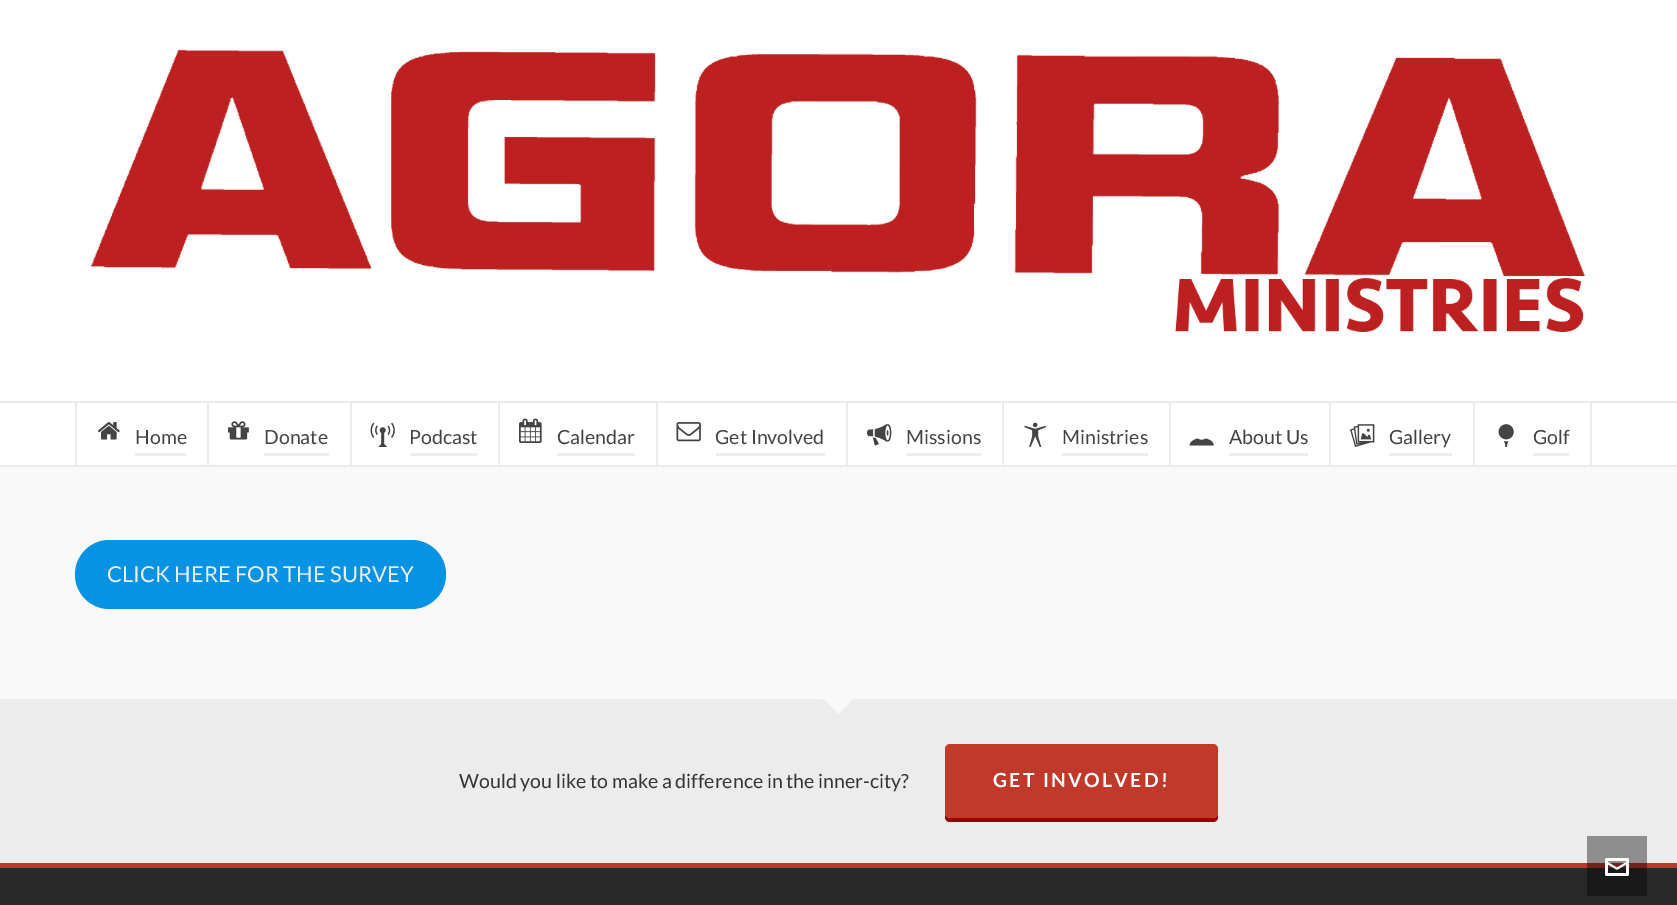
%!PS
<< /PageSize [1677 905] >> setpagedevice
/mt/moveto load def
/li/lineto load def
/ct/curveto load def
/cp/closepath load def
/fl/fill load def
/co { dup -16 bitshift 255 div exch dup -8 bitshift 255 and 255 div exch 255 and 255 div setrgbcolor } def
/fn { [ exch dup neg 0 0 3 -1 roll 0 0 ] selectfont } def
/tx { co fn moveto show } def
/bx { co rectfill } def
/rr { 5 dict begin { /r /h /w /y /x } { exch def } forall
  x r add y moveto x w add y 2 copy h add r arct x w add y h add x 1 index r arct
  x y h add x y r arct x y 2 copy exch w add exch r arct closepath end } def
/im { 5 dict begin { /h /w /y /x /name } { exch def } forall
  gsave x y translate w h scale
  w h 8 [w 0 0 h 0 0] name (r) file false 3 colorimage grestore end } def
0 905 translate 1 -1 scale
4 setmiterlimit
0 0 1677 905 16#F9F9F9 bx
0 0 1677 465 16#FFFFFF bx
0 465 1677 2 16#EBEBEB bx
(media/1.raw) 90 49 1496 283 im
0 401 1677 2 16#EBEBEB bx
207 402 2 63 16#EBEBEB bx
75 402 2 63 16#EBEBEB bx
(media/2.raw) 97 422 23 18 im
135 453 51 3 16#EEEEEE bx
350 402 2 63 16#EBEBEB bx
(media/3.raw) 228 421 21 19 im
264 453 65 3 16#EEEEEE bx
498 402 2 63 16#EBEBEB bx
(media/4.raw) 370 422 25 25 im
410 453 67 3 16#EEEEEE bx
656 402 2 63 16#EBEBEB bx
(media/5.raw) 519 418 23 25 im
557 453 78 3 16#EEEEEE bx
846 402 2 63 16#EBEBEB bx
(media/6.raw) 676 422 25 20 im
716 453 109 3 16#EEEEEE bx
1002 402 2 63 16#EBEBEB bx
(media/7.raw) 867 424 25 22 im
906 453 75 3 16#EEEEEE bx
1169 402 2 63 16#EBEBEB bx
(media/8.raw) 1024 422 22 25 im
1062 453 86 3 16#EEEEEE bx
1329 402 2 63 16#EBEBEB bx
(media/9.raw) 1189 438 25 8 im
1229 453 79 3 16#EEEEEE bx
1473 402 2 63 16#EBEBEB bx
(media/10.raw) 1350 424 25 23 im
1389 453 63 3 16#EEEEEE bx
1590 402 2 63 16#EBEBEB bx
(media/11.raw) 1498 424 16 23 im
1533 453 36 3 16#EEEEEE bx
16#0693E3 co
75 540 371 69 34.5 rr fl
0 699 1677 164 16#ECECEC bx
1587 836 60 27 16#8E8E8E bx
0 863 1677 5 16#C0392B bx
1587 863 60 5 16#73221A bx
16#F9F9F9 co
822 697.5 mt 855 697.5 li 838.5 714 li cp fl
16#8E0700 co
945 813 mt 945 817 li 945 820 947 822 950 822 ct 1213 822 li 1216 822 1218 820 1218 817 ct 1218 813 li 1218 815 1216 818 1214 818 ct 950 818 li 947 818 945 815 945 813 ct cp fl
16#C0392B co
945 744 273 74 5 rr fl
0 868 1677 37 16#292929 bx
1587 868 60 28 16#191919 bx
(media/12.raw) 1605 858 24 18 im
(Home) 135 444 /Lato-Regular 19.5 16#444444 tx
(Donate) 264 444 /Lato-Regular 19.5 16#444444 tx
(Podcast) 409 444 /Lato-Regular 19.5 16#444444 tx
(Calendar) 557 444 /Lato-Regular 19.5 16#444444 tx
(Get Involved) 715 444 /Lato-Regular 19.5 16#444444 tx
(Missions) 906 444 /Lato-Regular 19.5 16#444444 tx
(Ministries) 1062 444 /Lato-Regular 19.5 16#444444 tx
(About Us) 1229 444 /Lato-Regular 19.5 16#444444 tx
(Gallery) 1389 444 /Lato-Regular 19.5 16#444444 tx
(Golf) 1533 444 /Lato-Regular 19.5 16#444444 tx
(CLICK HERE FOR THE SURVEY) 107 582 /Lato-Regular 22 16#EEEEEE tx
(Would you like to make a difference in the inner-city?) 459 788 /Lato-Regular 19.5 16#323436 tx
/Lato-Bold 19.5 fn
16#FFFFFF co
993 787 mt 2.25 0 (GET INVOLVED!) ashow
showpage
